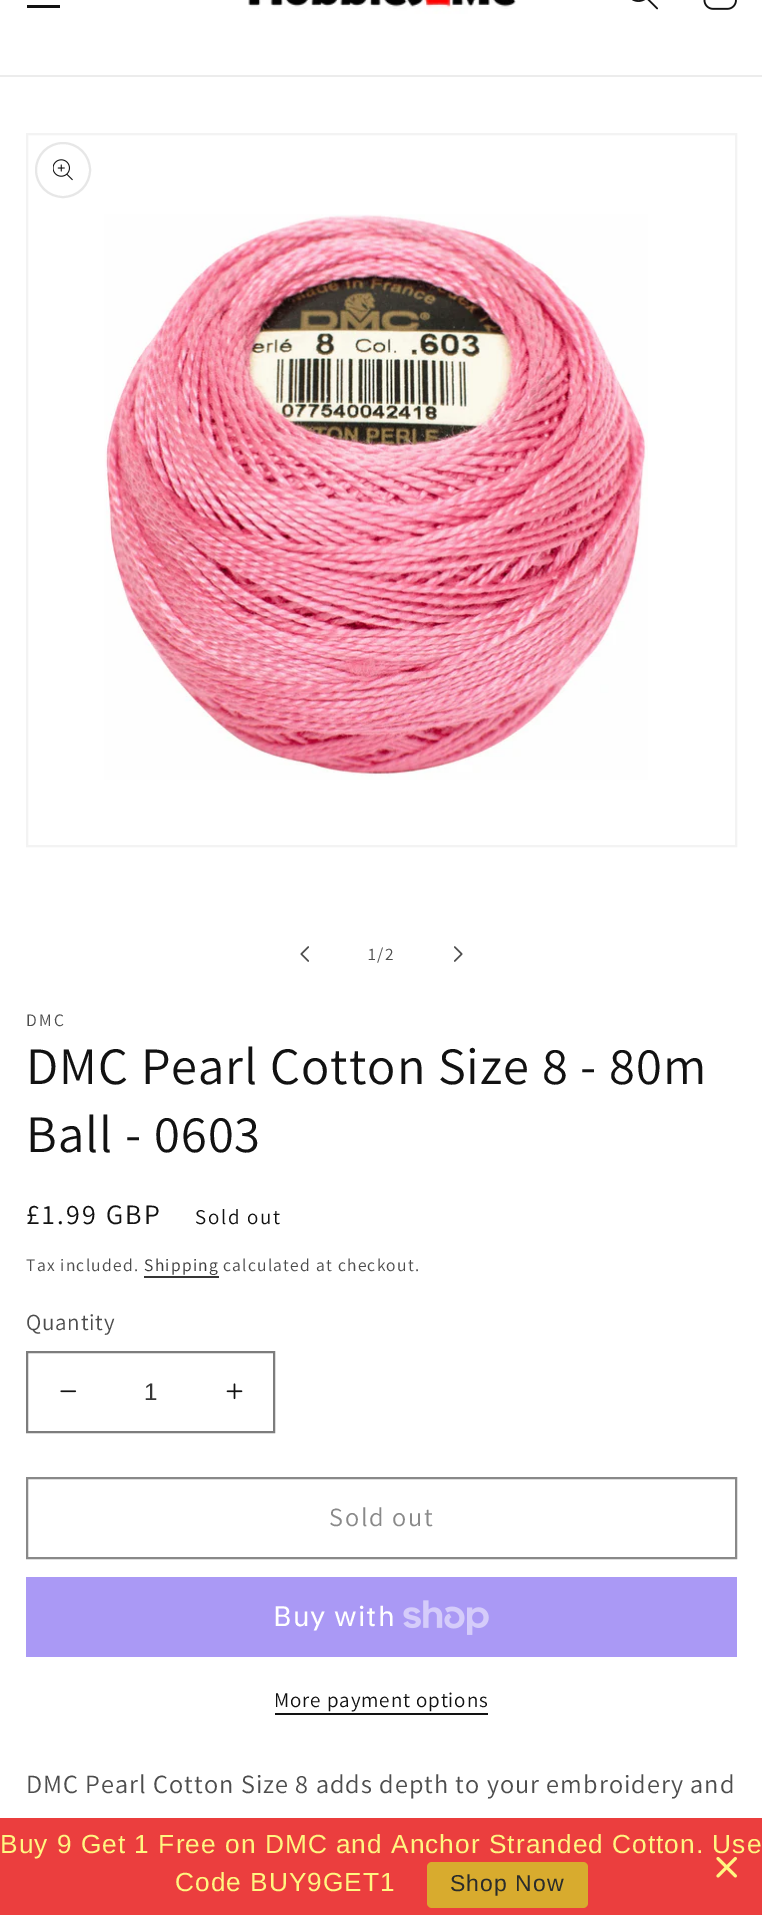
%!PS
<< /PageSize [762 1915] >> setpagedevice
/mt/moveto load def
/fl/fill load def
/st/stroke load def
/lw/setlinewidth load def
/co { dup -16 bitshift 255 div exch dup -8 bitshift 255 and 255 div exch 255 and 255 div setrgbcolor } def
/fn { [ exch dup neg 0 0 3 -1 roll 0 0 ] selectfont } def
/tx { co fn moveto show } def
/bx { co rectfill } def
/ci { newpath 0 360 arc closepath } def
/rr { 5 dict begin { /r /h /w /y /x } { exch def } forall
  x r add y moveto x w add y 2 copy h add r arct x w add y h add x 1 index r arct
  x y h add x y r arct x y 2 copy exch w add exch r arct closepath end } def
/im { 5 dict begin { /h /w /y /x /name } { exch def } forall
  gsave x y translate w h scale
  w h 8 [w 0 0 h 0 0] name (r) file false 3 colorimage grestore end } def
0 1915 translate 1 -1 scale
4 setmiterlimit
0 0 762 1915 16#FFFFFF bx
0 75 762 2 16#ECECEC bx
27 5 33 3 16#121212 bx
(media/1.raw) 248 0 268 14 im
(media/2.raw) 632 0 26 10 im
(media/3.raw) 703 0 34 10 im
16#F3F3F3 co
2 lw
27 134 709 712 rectstroke
(media/4.raw) 104 214 544 566 im
16#E7E7E7 co
63 170 27 ci st
(media/5.raw) 53 159 20 22 im
(media/6.raw) 300 946 9 16 im
(media/7.raw) 454 946 9 16 im
144 1276 75 2 16#363636 bx
(media/8.raw) 60 1390 17 3 im
(media/9.raw) 226 1383 17 17 im
16#7D7D7D co
27 1352 247 80 rectstroke
16#898989 co
27 1478 709 80 rectstroke
26 1577 711 80 16#AA99F5 bx
(media/10.raw) 403 1600 86 35 im
275 1713 213 2 16#121212 bx
0 1818 762 97 16#EB3E3E bx
16#D8AB2E co
427 1862 161 46 5 rr fl
/Assistant-Regular 17.5 fn
16#4D4D4D co
368 960 mt 1.25 0 (1/2) ashow
26 1026 mt 2.25 0 (DMC) ashow
/Assistant-Regular 52.5 fn
16#121212 co
26 1084 mt 1.05 0 (DMC Pearl Cotton Size 8 - 80m) ashow
26 1152 mt 1.05 0 (Ball - 0603) ashow
/Assistant-Regular 28 fn
26 1224 mt 2.25 0 (£1.99 GBP) ashow
/Assistant-Regular 21 fn
195 1224 mt 1.75 0 (Sold out) ashow
/Assistant-Regular 17.5 fn
16#4D4D4D co
26 1271 mt 1.25 0 (Tax included.) ashow
16#363636 co
144 1271 mt 1.25 0 (Shipping) ashow
16#4D4D4D co
223 1271 mt 1.25 0 (calculated at checkout.) ashow
/Assistant-Regular 23 fn
26 1330 mt .75 0 (Quantity) ashow
(1) 144 1400 /LiberationSans-Regular 24 16#363636 tx
/Assistant-Regular 26.25 fn
16#898989 co
329 1526 mt 1.75 0 (Sold out) ashow
/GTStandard-Regular 28 fn
16#FFFFFF co
273 1626 mt 1.05 0 (Buy with) ashow
/Assistant-Regular 21 fn
16#121212 co
274 1707 mt .9 0 (More payment options) ashow
/Assistant-Regular 26.25 fn
16#4D4D4D co
26 1793 mt 1.05 0 (DMC Pearl Cotton Size 8 adds depth to your embroidery and) ashow
/LiberationSans-Regular 26.25 fn
16#FFF681 co
0 1853 mt 1.05 0 (Buy 9 Get 1 Free on DMC and Anchor Stranded Cotton. Use) ashow
175 1891 mt 1.05 0 (Code BUY9GET1) ashow
/LiberationSans-Regular 23 fn
16#2A2C2B co
450 1891 mt 1.05 0 (Shop Now) ashow
(media/11.raw) 716 1856 21 22 im
showpage
